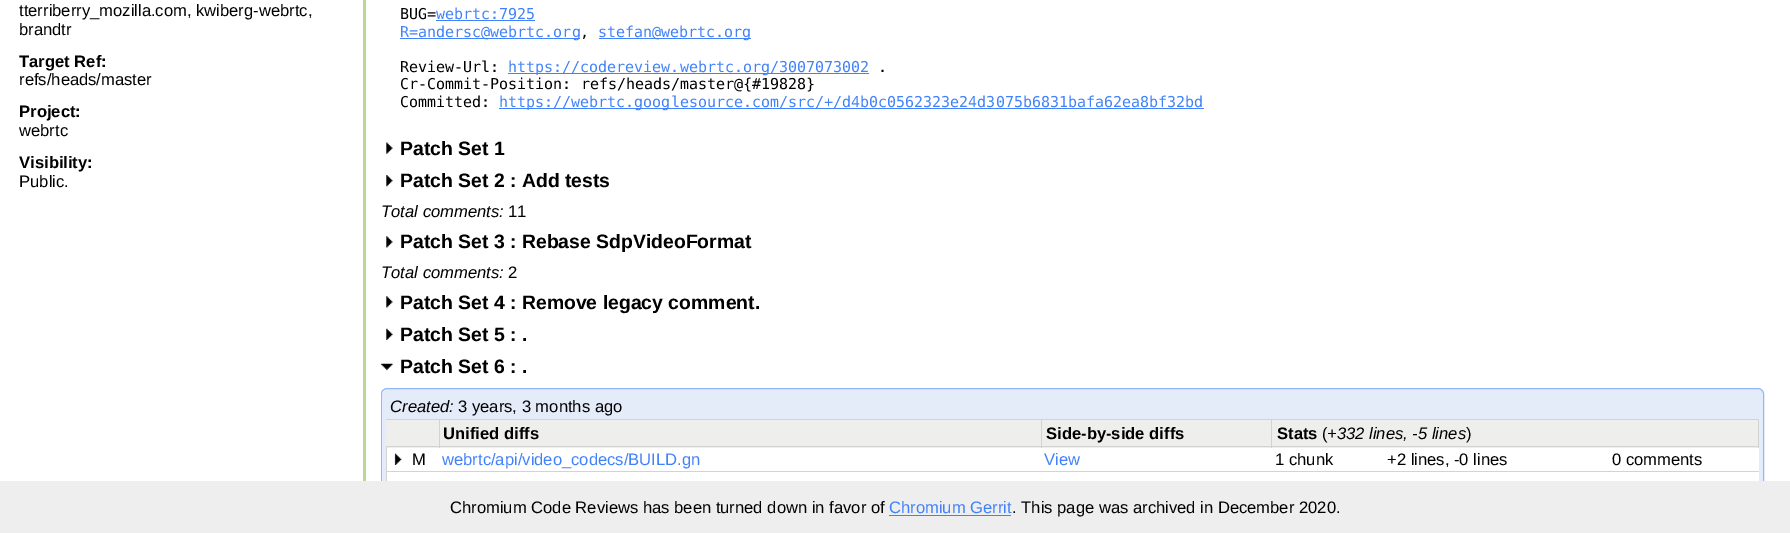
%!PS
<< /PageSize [1790 533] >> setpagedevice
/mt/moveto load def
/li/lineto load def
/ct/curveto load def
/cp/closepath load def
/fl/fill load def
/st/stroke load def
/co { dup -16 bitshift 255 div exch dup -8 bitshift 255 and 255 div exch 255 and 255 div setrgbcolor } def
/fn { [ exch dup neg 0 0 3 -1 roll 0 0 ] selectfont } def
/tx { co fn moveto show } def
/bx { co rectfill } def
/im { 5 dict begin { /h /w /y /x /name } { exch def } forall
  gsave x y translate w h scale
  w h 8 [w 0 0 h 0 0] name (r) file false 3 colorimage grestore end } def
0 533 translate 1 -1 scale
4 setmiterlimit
0 0 1790 533 16#FFFFFF bx
363 0 3 481 16#B7D993 bx
436 20 99 1 16#4182FA bx
400 38 180 1 16#4182FA bx
599 38 152 1 16#4182FA bx
508 73 361 1 16#4182FA bx
499 108 705 1 16#4182FA bx
(media/1.raw) 386 142 7 12 im
(media/2.raw) 386 175 7 12 im
(media/3.raw) 386 236 7 12 im
(media/3.raw) 386 296 7 12 im
(media/4.raw) 386 328 7 12 im
(media/5.raw) 381 363 12 8 im
16#E5ECF9 co
388 389 mt 1758 389 li 1761 389 1763 391 1763 394 ct 1763 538 li 383 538 li 383 394 li 383 391 385 389 388 389 ct cp fl
16#93B7FA co
387 388.5 mt 1758 388.5 li 1761 388.5 1763.5 391 1763.5 394 ct 1763.5 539.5 li 381.5 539.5 li 381.5 394 li 381.5 391 384 388.5 387 388.5 ct cp st
387 448 1372 33 16#FFFFFF bx
386 420 53 28 16#EEEEEC bx
440 420 1318 28 16#EEEEEC bx
386 446 1373 1 16#D3D3D3 bx
386 419 1373 1 16#D3D3D3 bx
439 419 1 29 16#D3D3D3 bx
1041 419 1 29 16#D3D3D3 bx
1271 419 1 29 16#D3D3D3 bx
1758 419 1 29 16#D3D3D3 bx
386 471 1373 1 16#D3D3D3 bx
386 446 1 35 16#D3D3D3 bx
(media/6.raw) 394 453 8 12 im
0 481 1790 52 16#EEEEEE bx
889 515 122 1 16#4182FA bx
(tterriberry_mozilla.com, kwiberg-webrtc,) 19 16 /LiberationSans-Regular 16.6 16#000000 tx
(brandtr) 19 35 /LiberationSans-Regular 16.6 16#000000 tx
(Target Ref:) 19 67 /LiberationSans-Bold 16.6 16#000000 tx
(refs/heads/master) 19 85 /LiberationSans-Regular 16.6 16#000000 tx
(Project:) 19 117 /LiberationSans-Bold 16.6 16#000000 tx
(webrtc) 19 136 /LiberationSans-Regular 16.6 16#000000 tx
(Visibility:) 19 168 /LiberationSans-Bold 16.6 16#000000 tx
(Public.) 19 187 /LiberationSans-Regular 16.6 16#000000 tx
(BUG=) 400 19 /DejaVuSansMono-Regular 15 16#000000 tx
(webrtc:7925) 436 19 /DejaVuSansMono-Regular 15 16#4182FA tx
(R=andersc@webrtc.org) 400 37 /DejaVuSansMono-Regular 15 16#4182FA tx
(,) 580 37 /DejaVuSansMono-Regular 15 16#000000 tx
(stefan@webrtc.org) 598 37 /DejaVuSansMono-Regular 15 16#4182FA tx
(Review-Url:) 400 72 /DejaVuSansMono-Regular 15 16#000000 tx
(https://codereview.webrtc.org/3007073002) 508 72 /DejaVuSansMono-Regular 15 16#4182FA tx
(.) 878 72 /DejaVuSansMono-Regular 15 16#000000 tx
(Cr-Commit-Position: refs/heads/master@{#19828}) 400 89 /DejaVuSansMono-Regular 15 16#000000 tx
(Committed:) 400 107 /DejaVuSansMono-Regular 15 16#000000 tx
(https://webrtc.googlesource.com/src/+/d4b0c0562323e24d3075b6831bafa62ea8bf32bd) 499 107 /DejaVuSansMono-Regular 15 16#4182FA tx
(Patch Set 1) 400 155 /LiberationSans-Bold 19.4 16#000000 tx
(Patch Set 2 : Add tests) 400 187 /LiberationSans-Bold 19.4 16#000000 tx
(Total comments:) 381 217 /LiberationSans-Italic 16.6 16#000000 tx
(11) 508 217 /LiberationSans-Regular 16.6 16#000000 tx
(Patch Set 3 : Rebase SdpVideoFormat) 400 248 /LiberationSans-Bold 19.4 16#000000 tx
(Total comments:) 381 278 /LiberationSans-Italic 16.6 16#000000 tx
(2) 508 278 /LiberationSans-Regular 16.6 16#000000 tx
(Patch Set 4 : Remove legacy comment.) 400 309 /LiberationSans-Bold 19.4 16#000000 tx
(Patch Set 5 : .) 400 341 /LiberationSans-Bold 19.4 16#000000 tx
(Patch Set 6 : .) 400 373 /LiberationSans-Bold 19.4 16#000000 tx
(Created:) 390 412 /LiberationSans-Italic 16.6 16#000000 tx
(3 years, 3 months ago) 458 412 /LiberationSans-Regular 16.6 16#000000 tx
(Unified diffs) 443 439 /LiberationSans-Bold 16.6 16#000000 tx
(Side-by-side diffs) 1046 439 /LiberationSans-Bold 16.6 16#000000 tx
(Stats) 1277 439 /LiberationSans-Bold 16.6 16#000000 tx
(\() 1322 439 /LiberationSans-Regular 16.6 16#000000 tx
(+332 lines, -5 lines) 1327 439 /LiberationSans-Italic 16.6 16#000000 tx
(\)) 1466 439 /LiberationSans-Regular 16.6 16#000000 tx
(M) 412 465 /LiberationSans-Regular 16.6 16#000000 tx
(webrtc/api/video_codecs/BUILD.gn) 442 465 /LiberationSans-Regular 16.6 16#4182FA tx
(View) 1044 465 /LiberationSans-Regular 16.6 16#4182FA tx
(1 chunk) 1275 465 /LiberationSans-Regular 16.6 16#000000 tx
(+2 lines, -0 lines) 1387 465 /LiberationSans-Regular 16.6 16#000000 tx
(0 comments) 1612 465 /LiberationSans-Regular 16.6 16#000000 tx
(Chromium Code Reviews has been turned down in favor of) 450 513 /LiberationSans-Regular 16.6 16#000000 tx
(Chromium Gerrit) 889 513 /LiberationSans-Regular 16.6 16#4182FA tx
(. This page was archived in December 2020.) 1012 513 /LiberationSans-Regular 16.6 16#000000 tx
showpage
